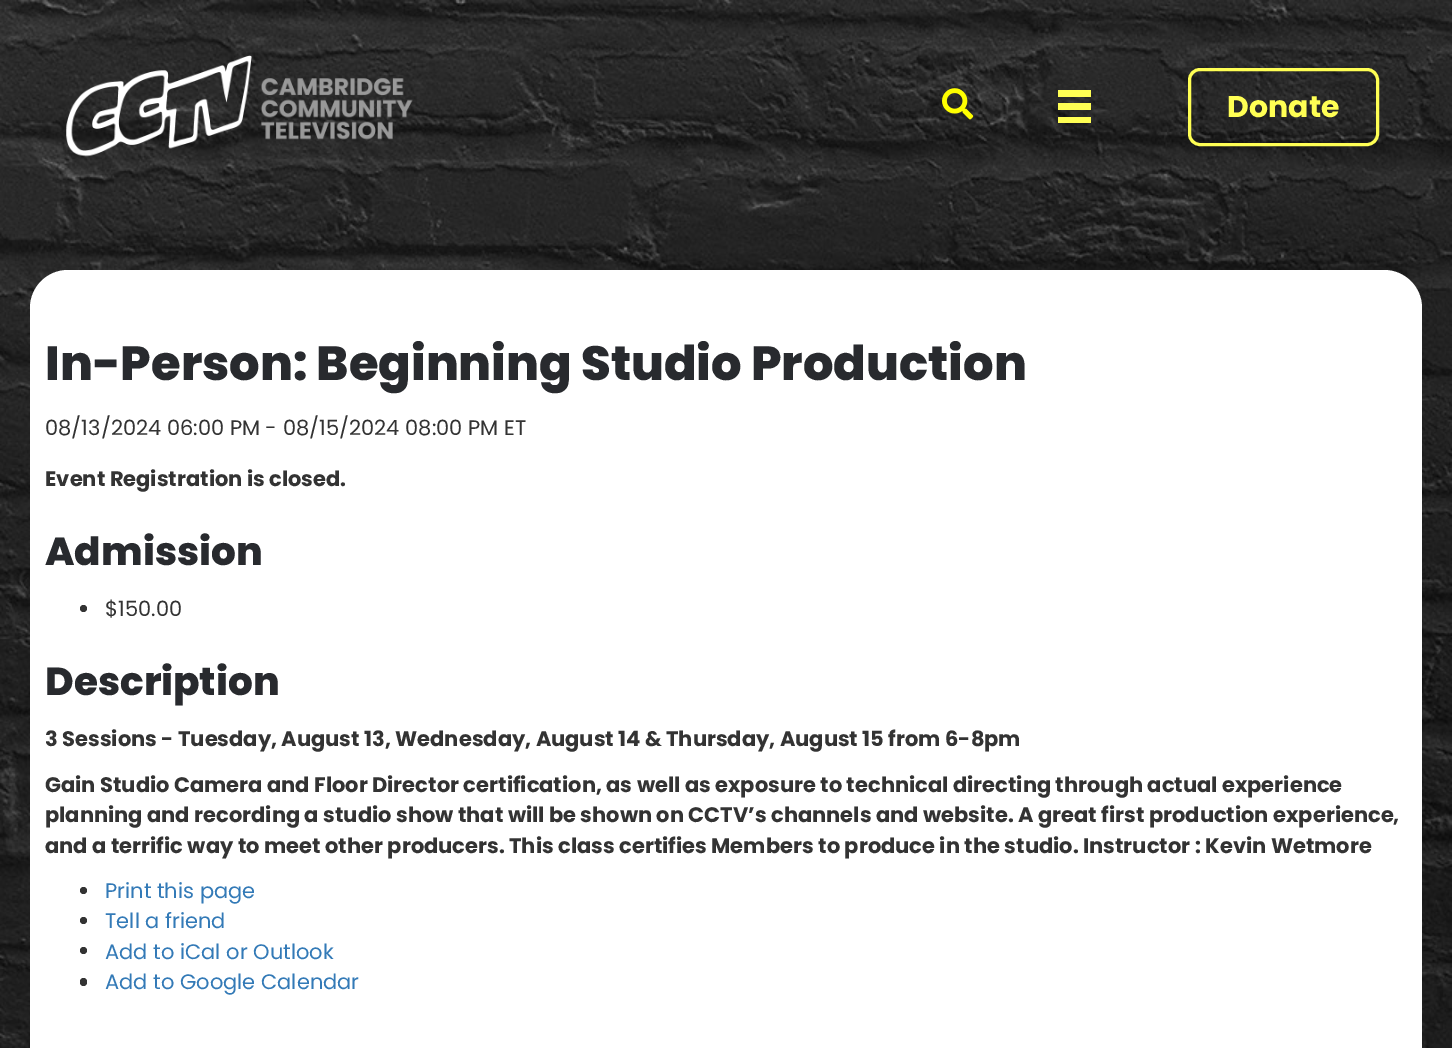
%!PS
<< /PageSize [1452 1048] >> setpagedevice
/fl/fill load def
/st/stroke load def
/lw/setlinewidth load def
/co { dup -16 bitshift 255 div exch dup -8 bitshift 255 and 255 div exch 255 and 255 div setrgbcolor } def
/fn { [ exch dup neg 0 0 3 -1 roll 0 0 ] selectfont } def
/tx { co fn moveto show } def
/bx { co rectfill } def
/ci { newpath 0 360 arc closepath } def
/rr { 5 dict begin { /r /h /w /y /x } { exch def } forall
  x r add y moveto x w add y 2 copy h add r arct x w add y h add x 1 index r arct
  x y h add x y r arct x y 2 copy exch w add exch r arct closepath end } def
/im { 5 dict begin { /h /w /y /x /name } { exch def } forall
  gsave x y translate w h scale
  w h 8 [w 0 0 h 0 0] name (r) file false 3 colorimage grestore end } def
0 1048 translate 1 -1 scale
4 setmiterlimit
0 0 1452 1048 16#FFFFFF bx
(media/1.raw) 0 0 1452 1048 im
(media/2.raw) 66 55 347 102 im
(media/3.raw) 942 88 32 32 im
1058 90 33 7 16#FFFF54 bx
1058 103 33 7 16#FFFF54 bx
1058 117 33 6 16#FFFF54 bx
3 lw
1189.5 69.5 188 75 10.5 rr st
16#FFFFFF co
30 270 1392 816 38 rr fl
16#333333 co
83.5 608.5 3.5 ci fl
83.5 890.5 3.5 ci fl
83.5 920.5 3.5 ci fl
83.5 950.5 3.5 ci fl
80 978 7 8 3.5 rr fl
(Donate) 1227 117 /Poppins-Bold 30 16#FFFF54 tx
(In-Person: Beginning Studio Production) 45 380 /Poppins-ExtraBold 48 16#282A2E tx
(08/13/2024 06:00 PM - 08/15/2024 08:00 PM ET) 45 435 /Poppins-Regular 21 16#333333 tx
(Event Registration is closed.) 45 486 /Poppins-Bold 21 16#333333 tx
(Admission) 45 565 /Poppins-ExtraBold 39 16#282A2E tx
($150.00) 105 616 /Poppins-Regular 21 16#333333 tx
(Description) 45 695 /Poppins-ExtraBold 39 16#282A2E tx
(3 Sessions - Tuesday, August 13, Wednesday, August 14 & Thursday, August 15 from 6-8pm) 45 746 /Poppins-Bold 21 16#333333 tx
(Gain Studio Camera and Floor Director certification, as well as exposure to technical directing through actual experience) 45 792 /Poppins-Bold 21 16#333333 tx
(planning and recording a studio show that will be shown on CCTV’s channels and website. A great first production experience,) 45 822 /Poppins-Bold 21 16#333333 tx
(and a terrific way to meet other producers. This class certifies Members to produce in the studio. Instructor : Kevin Wetmore) 45 853 /Poppins-Bold 21 16#333333 tx
(Print this page) 105 898 /Poppins-Regular 21 16#337AB7 tx
(Tell a friend) 105 928 /Poppins-Regular 21 16#337AB7 tx
(Add to iCal or Outlook) 105 959 /Poppins-Regular 21 16#337AB7 tx
(Add to Google Calendar) 105 989 /Poppins-Regular 21 16#337AB7 tx
showpage
